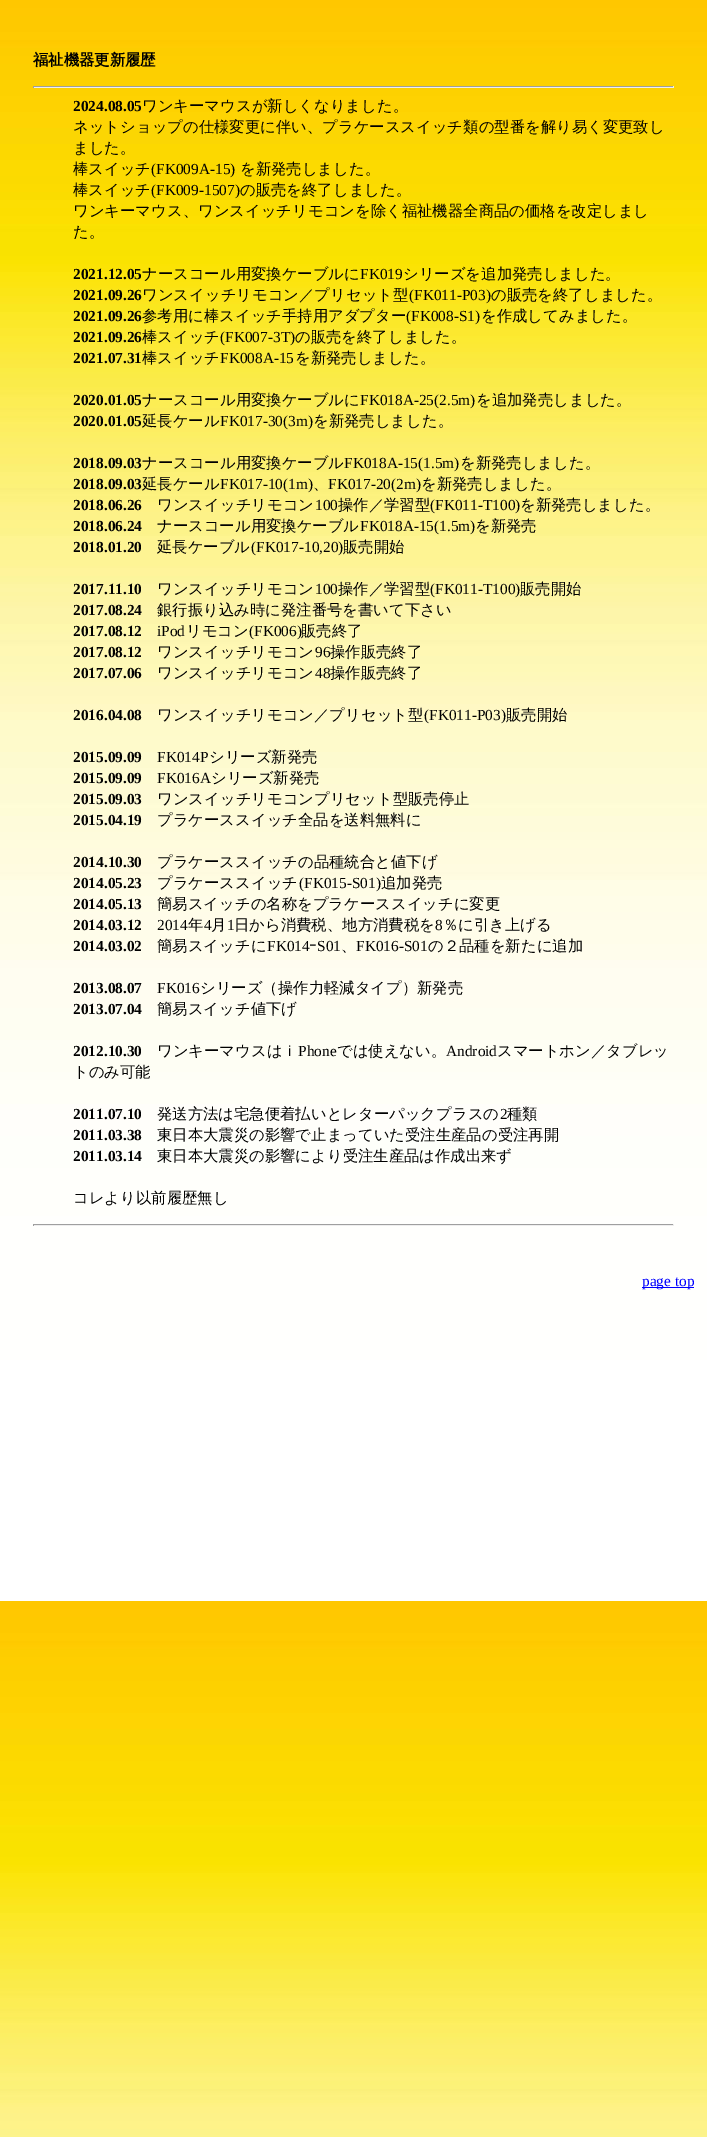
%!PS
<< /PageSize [707 2137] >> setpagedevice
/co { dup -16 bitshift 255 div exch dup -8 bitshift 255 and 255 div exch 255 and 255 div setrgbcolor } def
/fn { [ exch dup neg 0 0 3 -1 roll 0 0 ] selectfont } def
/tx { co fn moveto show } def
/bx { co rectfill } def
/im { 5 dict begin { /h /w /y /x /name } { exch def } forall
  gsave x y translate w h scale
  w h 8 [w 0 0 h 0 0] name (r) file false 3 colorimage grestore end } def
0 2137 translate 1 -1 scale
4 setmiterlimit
0 0 707 2137 16#FFFFFF bx
(media/1.raw) 0 0 707 2137 im
33 86 641 1 16#9F9F9F bx
673 86 1 2 16#EEEEEE bx
33 87 641 1 16#EEEEEE bx
33 86 1 2 16#9F9F9F bx
33 1224 641 1 16#9F9F9F bx
673 1224 1 2 16#EEEEEE bx
33 1225 641 1 16#EEEEEE bx
33 1224 1 2 16#9F9F9F bx
642 1287 52 1 16#0000FF bx
(福祉機器更新履歴) 33 65 /WenQuanYiZenHei-Bold 15.35 16#000000 tx
(2024.08.05) 73 111 /LiberationSerif-Bold 15.35 16#000000 tx
(ワンキーマウスが新しくなりました。) 142 111 /WenQuanYiZenHei-Medium 15.35 16#000000 tx
(ネットショップの仕様変更に伴い、プラケーススイッチ類の型番を解り易く変更致し) 73 132 /WenQuanYiZenHei-Medium 15.35 16#000000 tx
(ました。) 73 153 /WenQuanYiZenHei-Medium 15.35 16#000000 tx
(棒スイッチ) 73 174 /WenQuanYiZenHei-Medium 15.35 16#000000 tx
(\(FK009A-15\)) 151 174 /LiberationSerif-Regular 15.35 16#000000 tx
(を新発売しました。) 240 174 /WenQuanYiZenHei-Medium 15.35 16#000000 tx
(棒スイッチ) 73 195 /WenQuanYiZenHei-Medium 15.35 16#000000 tx
(\(FK009-1507\)) 151 195 /LiberationSerif-Regular 15.35 16#000000 tx
(の販売を終了しました。) 240 195 /WenQuanYiZenHei-Medium 15.35 16#000000 tx
(ワンキーマウス、ワンスイッチリモコンを除く福祉機器全商品の価格を改定しまし) 73 216 /WenQuanYiZenHei-Medium 15.35 16#000000 tx
(た。) 73 237 /WenQuanYiZenHei-Medium 15.35 16#000000 tx
(2021.12.05) 73 279 /LiberationSerif-Bold 15.35 16#000000 tx
(ナースコール用変換ケーブルに) 142 279 /WenQuanYiZenHei-Medium 15.35 16#000000 tx
(FK019) 360 279 /LiberationSerif-Regular 15.35 16#000000 tx
(シリーズを追加発売しました。) 403 279 /WenQuanYiZenHei-Medium 15.35 16#000000 tx
(2021.09.26) 73 300 /LiberationSerif-Bold 15.35 16#000000 tx
(ワンスイッチリモコン／プリセット型) 142 300 /WenQuanYiZenHei-Medium 15.35 16#000000 tx
(\(FK011-P03\)) 409 300 /LiberationSerif-Regular 15.35 16#000000 tx
(の販売を終了しました。) 491 300 /WenQuanYiZenHei-Medium 15.35 16#000000 tx
(2021.09.26) 73 321 /LiberationSerif-Bold 15.35 16#000000 tx
(参考用に棒スイッチ手持用アダプター) 142 321 /WenQuanYiZenHei-Medium 15.35 16#000000 tx
(\(FK008-S1\)) 406 321 /LiberationSerif-Regular 15.35 16#000000 tx
(を作成してみました。) 481 321 /WenQuanYiZenHei-Medium 15.35 16#000000 tx
(2021.09.26) 73 342 /LiberationSerif-Bold 15.35 16#000000 tx
(棒スイッチ) 142 342 /WenQuanYiZenHei-Medium 15.35 16#000000 tx
(\(FK007-3T\)) 220 342 /LiberationSerif-Regular 15.35 16#000000 tx
(の販売を終了しました。) 295 342 /WenQuanYiZenHei-Medium 15.35 16#000000 tx
(2021.07.31) 73 363 /LiberationSerif-Bold 15.35 16#000000 tx
(棒スイッチ) 142 363 /WenQuanYiZenHei-Medium 15.35 16#000000 tx
(FK008A-15) 220 363 /LiberationSerif-Regular 15.35 16#000000 tx
(を新発売しました。) 295 363 /WenQuanYiZenHei-Medium 15.35 16#000000 tx
(2020.01.05) 73 405 /LiberationSerif-Bold 15.35 16#000000 tx
(ナースコール用変換ケーブルに) 142 405 /WenQuanYiZenHei-Medium 15.35 16#000000 tx
(FK018A-25\(2.5m\)) 360 405 /LiberationSerif-Regular 15.35 16#000000 tx
(を追加発売しました。) 476 405 /WenQuanYiZenHei-Medium 15.35 16#000000 tx
(2020.01.05) 73 426 /LiberationSerif-Bold 15.35 16#000000 tx
(延長ケール) 142 426 /WenQuanYiZenHei-Medium 15.35 16#000000 tx
(FK017-30\(3m\)) 220 426 /LiberationSerif-Regular 15.35 16#000000 tx
(を新発売しました。) 313 426 /WenQuanYiZenHei-Medium 15.35 16#000000 tx
(2018.09.03) 73 468 /LiberationSerif-Bold 15.35 16#000000 tx
(ナースコール用変換ケーブル) 142 468 /WenQuanYiZenHei-Medium 15.35 16#000000 tx
(FK018A-15\(1.5m\)) 344 468 /LiberationSerif-Regular 15.35 16#000000 tx
(を新発売しました。) 460 468 /WenQuanYiZenHei-Medium 15.35 16#000000 tx
(2018.09.03) 73 489 /LiberationSerif-Bold 15.35 16#000000 tx
(延長ケール) 142 489 /WenQuanYiZenHei-Medium 15.35 16#000000 tx
(FK017-10\(1m\)) 220 489 /LiberationSerif-Regular 15.35 16#000000 tx
(、) 313 489 /WenQuanYiZenHei-Medium 15.35 16#000000 tx
(FK017-20\(2m\)) 328 489 /LiberationSerif-Regular 15.35 16#000000 tx
(を新発売しました。) 421 489 /WenQuanYiZenHei-Medium 15.35 16#000000 tx
(2018.06.26) 73 510 /LiberationSerif-Bold 15.35 16#000000 tx
(ワンスイッチリモコン) 157 510 /WenQuanYiZenHei-Medium 15.35 16#000000 tx
(100) 315 510 /LiberationSerif-Regular 15.35 16#000000 tx
(操作／学習型) 338 510 /WenQuanYiZenHei-Medium 15.35 16#000000 tx
(\(FK011-T100\)) 430 510 /LiberationSerif-Regular 15.35 16#000000 tx
(を新発売しました。) 520 510 /WenQuanYiZenHei-Medium 15.35 16#000000 tx
(2018.06.24) 73 531 /LiberationSerif-Bold 15.35 16#000000 tx
(ナースコール用変換ケーブル) 157 531 /WenQuanYiZenHei-Medium 15.35 16#000000 tx
(FK018A-15\(1.5m\)) 360 531 /LiberationSerif-Regular 15.35 16#000000 tx
(を新発売) 475 531 /WenQuanYiZenHei-Medium 15.35 16#000000 tx
(2018.01.20) 73 552 /LiberationSerif-Bold 15.35 16#000000 tx
(延長ケーブル) 157 552 /WenQuanYiZenHei-Medium 15.35 16#000000 tx
(\(FK017-10,20\)) 251 552 /LiberationSerif-Regular 15.35 16#000000 tx
(販売開始) 343 552 /WenQuanYiZenHei-Medium 15.35 16#000000 tx
(2017.11.10) 73 594 /LiberationSerif-Bold 15.35 16#000000 tx
(ワンスイッチリモコン) 157 594 /WenQuanYiZenHei-Medium 15.35 16#000000 tx
(100) 315 594 /LiberationSerif-Regular 15.35 16#000000 tx
(操作／学習型) 338 594 /WenQuanYiZenHei-Medium 15.35 16#000000 tx
(\(FK011-T100\)) 430 594 /LiberationSerif-Regular 15.35 16#000000 tx
(販売開始) 520 594 /WenQuanYiZenHei-Medium 15.35 16#000000 tx
(2017.08.24) 73 615 /LiberationSerif-Bold 15.35 16#000000 tx
(銀行振り込み時に発注番号を書いて下さい) 157 615 /WenQuanYiZenHei-Medium 15.35 16#000000 tx
(2017.08.12) 73 636 /LiberationSerif-Bold 15.35 16#000000 tx
(iPod) 157 636 /LiberationSerif-Regular 15.35 16#000000 tx
(リモコン) 186 636 /WenQuanYiZenHei-Medium 15.35 16#000000 tx
(\(FK006\)) 249 636 /LiberationSerif-Regular 15.35 16#000000 tx
(販売終了) 301 636 /WenQuanYiZenHei-Medium 15.35 16#000000 tx
(2017.08.12) 73 657 /LiberationSerif-Bold 15.35 16#000000 tx
(ワンスイッチリモコン) 157 657 /WenQuanYiZenHei-Medium 15.35 16#000000 tx
(96) 315 657 /LiberationSerif-Regular 15.35 16#000000 tx
(操作販売終了) 330 657 /WenQuanYiZenHei-Medium 15.35 16#000000 tx
(2017.07.06) 73 678 /LiberationSerif-Bold 15.35 16#000000 tx
(ワンスイッチリモコン) 157 678 /WenQuanYiZenHei-Medium 15.35 16#000000 tx
(48) 315 678 /LiberationSerif-Regular 15.35 16#000000 tx
(操作販売終了) 330 678 /WenQuanYiZenHei-Medium 15.35 16#000000 tx
(2016.04.08) 73 720 /LiberationSerif-Bold 15.35 16#000000 tx
(ワンスイッチリモコン／プリセット型) 157 720 /WenQuanYiZenHei-Medium 15.35 16#000000 tx
(\(FK011-P03\)) 424 720 /LiberationSerif-Regular 15.35 16#000000 tx
(販売開始) 506 720 /WenQuanYiZenHei-Medium 15.35 16#000000 tx
(2015.09.09) 73 762 /LiberationSerif-Bold 15.35 16#000000 tx
(FK014P) 157 762 /LiberationSerif-Regular 15.35 16#000000 tx
(シリーズ新発売) 209 762 /WenQuanYiZenHei-Medium 15.35 16#000000 tx
(2015.09.09) 73 783 /LiberationSerif-Bold 15.35 16#000000 tx
(FK016A) 157 783 /LiberationSerif-Regular 15.35 16#000000 tx
(シリーズ新発売) 211 783 /WenQuanYiZenHei-Medium 15.35 16#000000 tx
(2015.09.03) 73 804 /LiberationSerif-Bold 15.35 16#000000 tx
(ワンスイッチリモコンプリセット型販売停止) 157 804 /WenQuanYiZenHei-Medium 15.35 16#000000 tx
(2015.04.19) 73 825 /LiberationSerif-Bold 15.35 16#000000 tx
(プラケーススイッチ全品を送料無料に) 157 825 /WenQuanYiZenHei-Medium 15.35 16#000000 tx
(2014.10.30) 73 867 /LiberationSerif-Bold 15.35 16#000000 tx
(プラケーススイッチの品種統合と値下げ) 157 867 /WenQuanYiZenHei-Medium 15.35 16#000000 tx
(2014.05.23) 73 888 /LiberationSerif-Bold 15.35 16#000000 tx
(プラケーススイッチ) 157 888 /WenQuanYiZenHei-Medium 15.35 16#000000 tx
(\(FK015-S01\)) 299 888 /LiberationSerif-Regular 15.35 16#000000 tx
(追加発売) 381 888 /WenQuanYiZenHei-Medium 15.35 16#000000 tx
(2014.05.13) 73 909 /LiberationSerif-Bold 15.35 16#000000 tx
(簡易スイッチの名称をプラケーススイッチに変更) 157 909 /WenQuanYiZenHei-Medium 15.35 16#000000 tx
(2014.03.12) 73 930 /LiberationSerif-Bold 15.35 16#000000 tx
(2014) 157 930 /LiberationSerif-Regular 15.35 16#000000 tx
(年) 188 930 /WenQuanYiZenHei-Medium 15.35 16#000000 tx
(4) 204 930 /LiberationSerif-Regular 15.35 16#000000 tx
(月) 211 930 /WenQuanYiZenHei-Medium 15.35 16#000000 tx
(1) 227 930 /LiberationSerif-Regular 15.35 16#000000 tx
(日から消費税、地方消費税を) 234 930 /WenQuanYiZenHei-Medium 15.35 16#000000 tx
(8) 435 930 /LiberationSerif-Regular 15.35 16#000000 tx
(％に引き上げる) 443 930 /WenQuanYiZenHei-Medium 15.35 16#000000 tx
(2014.03.02) 73 951 /LiberationSerif-Bold 15.35 16#000000 tx
(簡易スイッチに) 157 951 /WenQuanYiZenHei-Medium 15.35 16#000000 tx
(FK014) 267 951 /LiberationSerif-Regular 15.35 16#000000 tx
(ｰ) 309 951 /IPAGothic-Regular 15.35 16#000000 tx
(S01) 317 951 /LiberationSerif-Regular 15.35 16#000000 tx
(FK016-S01) 356 951 /LiberationSerif-Regular 15.35 16#000000 tx
(の２品種を新たに追加) 428 951 /WenQuanYiZenHei-Medium 15.35 16#000000 tx
(、) 341 951 /WenQuanYiZenHei-Medium 15.35 16#000000 tx
(2013.08.07) 73 993 /LiberationSerif-Bold 15.35 16#000000 tx
(FK016) 157 993 /LiberationSerif-Regular 15.35 16#000000 tx
(シリーズ（操作力軽減タイプ）新発売) 200 993 /WenQuanYiZenHei-Medium 15.35 16#000000 tx
(2013.07.04) 73 1014 /LiberationSerif-Bold 15.35 16#000000 tx
(簡易スイッチ値下げ) 157 1014 /WenQuanYiZenHei-Medium 15.35 16#000000 tx
(2012.10.30) 73 1056 /LiberationSerif-Bold 15.35 16#000000 tx
(ワンキーマウスはｉ) 157 1056 /WenQuanYiZenHei-Medium 15.35 16#000000 tx
(Phone) 298 1056 /LiberationSerif-Regular 15.35 16#000000 tx
(では使えない。) 337 1056 /WenQuanYiZenHei-Medium 15.35 16#000000 tx
(Android) 446 1056 /LiberationSerif-Regular 15.35 16#000000 tx
(スマートホン／タブレッ) 497 1056 /WenQuanYiZenHei-Medium 15.35 16#000000 tx
(トのみ可能) 73 1077 /WenQuanYiZenHei-Medium 15.35 16#000000 tx
(2011.07.10) 73 1119 /LiberationSerif-Bold 15.35 16#000000 tx
(発送方法は宅急便着払いとレターパックプラスの) 157 1119 /WenQuanYiZenHei-Medium 15.35 16#000000 tx
(2) 500 1119 /LiberationSerif-Regular 15.35 16#000000 tx
(種類) 507 1119 /WenQuanYiZenHei-Medium 15.35 16#000000 tx
(2011.03.38) 73 1140 /LiberationSerif-Bold 15.35 16#000000 tx
(東日本大震災の影響で止まっていた受注生産品の受注再開) 157 1140 /WenQuanYiZenHei-Medium 15.35 16#000000 tx
(2011.03.14) 73 1161 /LiberationSerif-Bold 15.35 16#000000 tx
(東日本大震災の影響により受注生産品は作成出来ず) 157 1161 /WenQuanYiZenHei-Medium 15.35 16#000000 tx
(コレより以前履歴無し) 73 1203 /WenQuanYiZenHei-Medium 15.35 16#000000 tx
(page top) 642 1286 /LiberationSerif-Regular 15.35 16#0000FF tx
showpage
